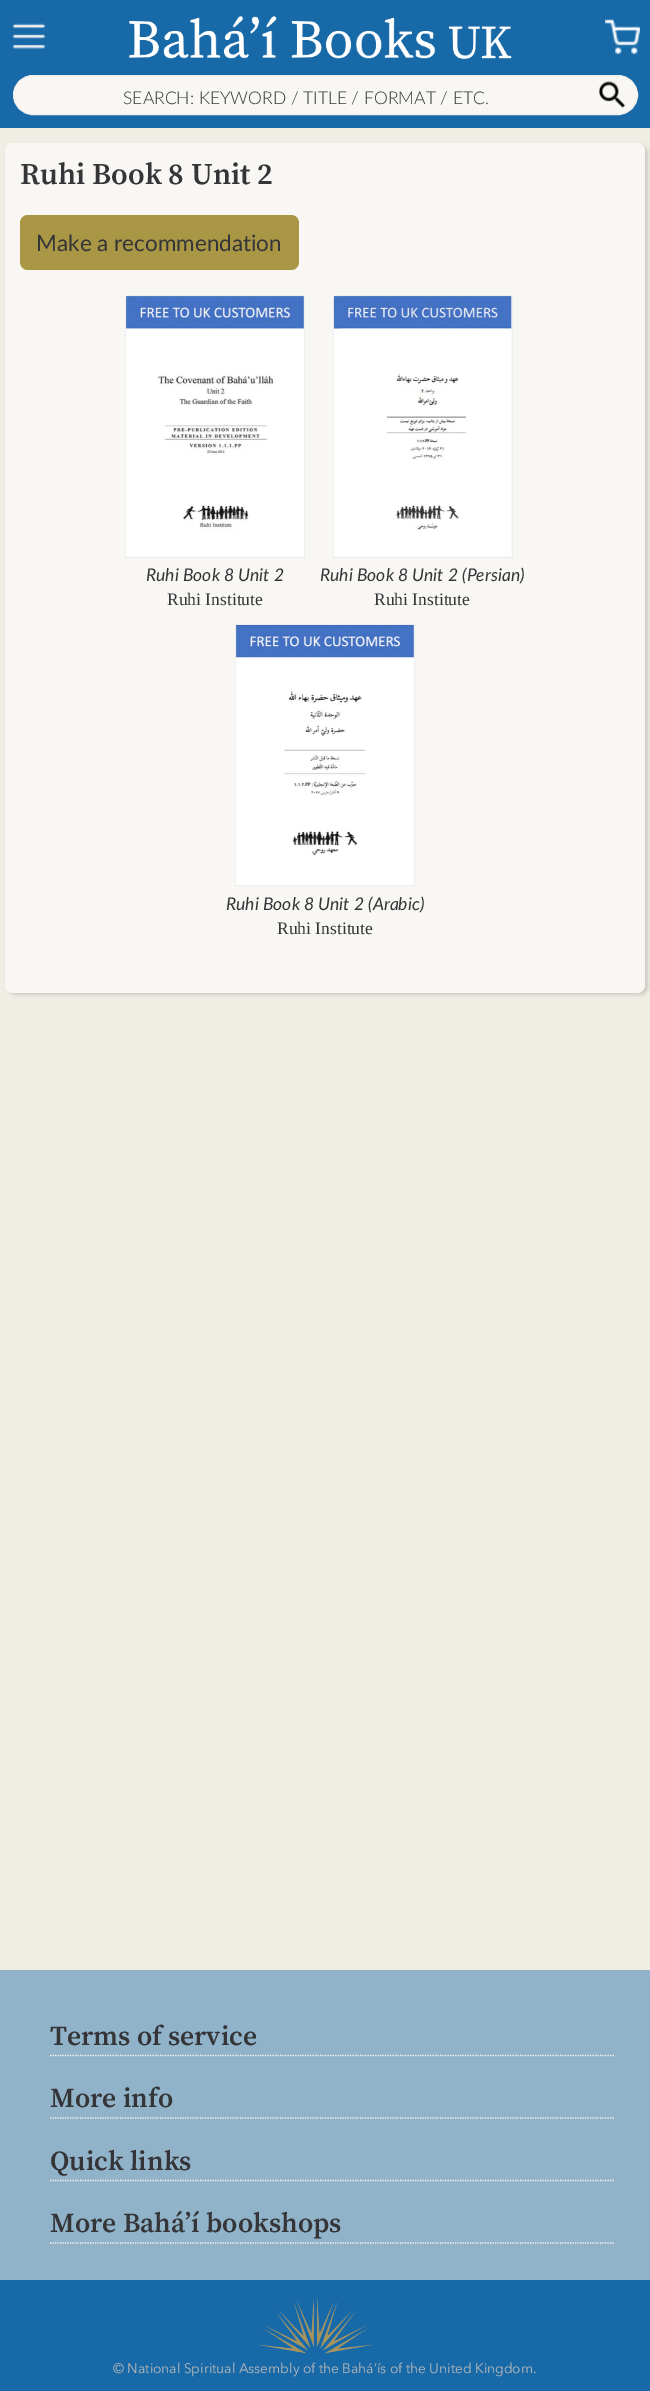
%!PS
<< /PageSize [650 2391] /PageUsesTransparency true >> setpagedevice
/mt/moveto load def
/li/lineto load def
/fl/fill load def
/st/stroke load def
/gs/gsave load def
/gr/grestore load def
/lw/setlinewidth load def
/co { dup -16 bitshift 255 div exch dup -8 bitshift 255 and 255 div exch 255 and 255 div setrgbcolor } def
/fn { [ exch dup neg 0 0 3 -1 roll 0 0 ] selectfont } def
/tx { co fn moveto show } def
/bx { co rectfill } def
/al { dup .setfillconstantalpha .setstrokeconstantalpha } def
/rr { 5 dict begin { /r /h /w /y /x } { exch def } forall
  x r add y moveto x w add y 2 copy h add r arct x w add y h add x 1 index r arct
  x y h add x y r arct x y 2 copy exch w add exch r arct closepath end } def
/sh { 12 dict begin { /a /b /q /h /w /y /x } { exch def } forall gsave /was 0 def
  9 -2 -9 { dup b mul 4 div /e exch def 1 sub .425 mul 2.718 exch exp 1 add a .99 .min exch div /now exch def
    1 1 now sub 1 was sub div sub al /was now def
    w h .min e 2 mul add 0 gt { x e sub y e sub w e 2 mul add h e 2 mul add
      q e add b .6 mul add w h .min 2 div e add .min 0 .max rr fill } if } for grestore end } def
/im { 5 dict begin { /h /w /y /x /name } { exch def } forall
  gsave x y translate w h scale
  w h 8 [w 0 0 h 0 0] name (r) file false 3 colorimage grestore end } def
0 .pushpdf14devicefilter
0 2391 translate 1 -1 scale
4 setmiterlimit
0 0 650 2391 16#EFEDE4 bx
0 0 650 128 16#1769A8 bx
(media/1.raw) 12 23 34 26 im
(media/2.raw) 129 16 383 43 im
(media/3.raw) 605 19 35 36 im
16#F8F7F4 co
13.5 75.5 624 39 19.5 rr gs fl gr
16#EEEEEE co
st
(media/4.raw) 598 80 28 28 im
16#353538 co
8 145 640 850 8 2 .19 sh
16#F8F7F4 co
5 143 640 850 8 rr fl
16#A99746 co
20 215 279 55 8 rr fl
16#EEEEEE co
125.5 295.5 179 262 rectstroke
(media/5.raw) 126 296 178 260 im
333.5 295.5 179 262 rectstroke
(media/6.raw) 333 296 179 260 im
235.5 624.5 179 261 rectstroke
(media/7.raw) 236 625 178 260 im
0 1970 650 310 16#90B3CA bx
16#F8F7F4 co
1.2 lw
[1.25 1.25] 0 setdash
50 2055.5 mt 615 2055.5 li st
50 2118 mt 615 2118 li st
50 2180.5 mt 615 2180.5 li st
50 2243 mt 615 2243 li st
0 2280 650 111 16#1769A8 bx
(media/8.raw) 258 2296 116 58 im
(SEARCH: KEYWORD / TITLE / FORMAT / ETC.) 123 104 /Lato-Light 17.5 16#353538 tx
(Ruhi Book 8 Unit 2) 20 184 /SourceSerif4-SemiBold 30 16#353538 tx
(Make a recommendation) 36 251 /Lato-Regular 22.5 16#353538 tx
(Ruhi Book 8 Unit 2) 146 581 /Lato-Italic 17.5 16#353538 tx
(Ruhi Institute) 167 605 /LiberationSerif-Regular 17.5 16#353538 tx
(Ruhi Book 8 Unit 2 \(Persian\)) 320 581 /Lato-Italic 17.5 16#353538 tx
(Ruhi Institute) 374 605 /LiberationSerif-Regular 17.5 16#353538 tx
(Ruhi Book 8 Unit 2 \(Arabic\)) 226 910 /Lato-Italic 17.5 16#353538 tx
(Ruhi Institute) 277 934 /LiberationSerif-Regular 17.5 16#353538 tx
(Terms of service) 50 2045 /SourceSerif4-SemiBold 27.5 16#353538 tx
(More info) 50 2107 /SourceSerif4-SemiBold 27.5 16#353538 tx
(Quick links) 50 2170 /SourceSerif4-SemiBold 27.5 16#353538 tx
(More Bahá’í bookshops) 50 2232 /SourceSerif4-SemiBold 27.5 16#353538 tx
(© National Spiritual Assembly of the Bahá’ís of the United Kingdom.) 113 2373 /AvenirNext-Regular 13.75 16#B8B8B8 tx
.poppdf14devicefilter showpage
